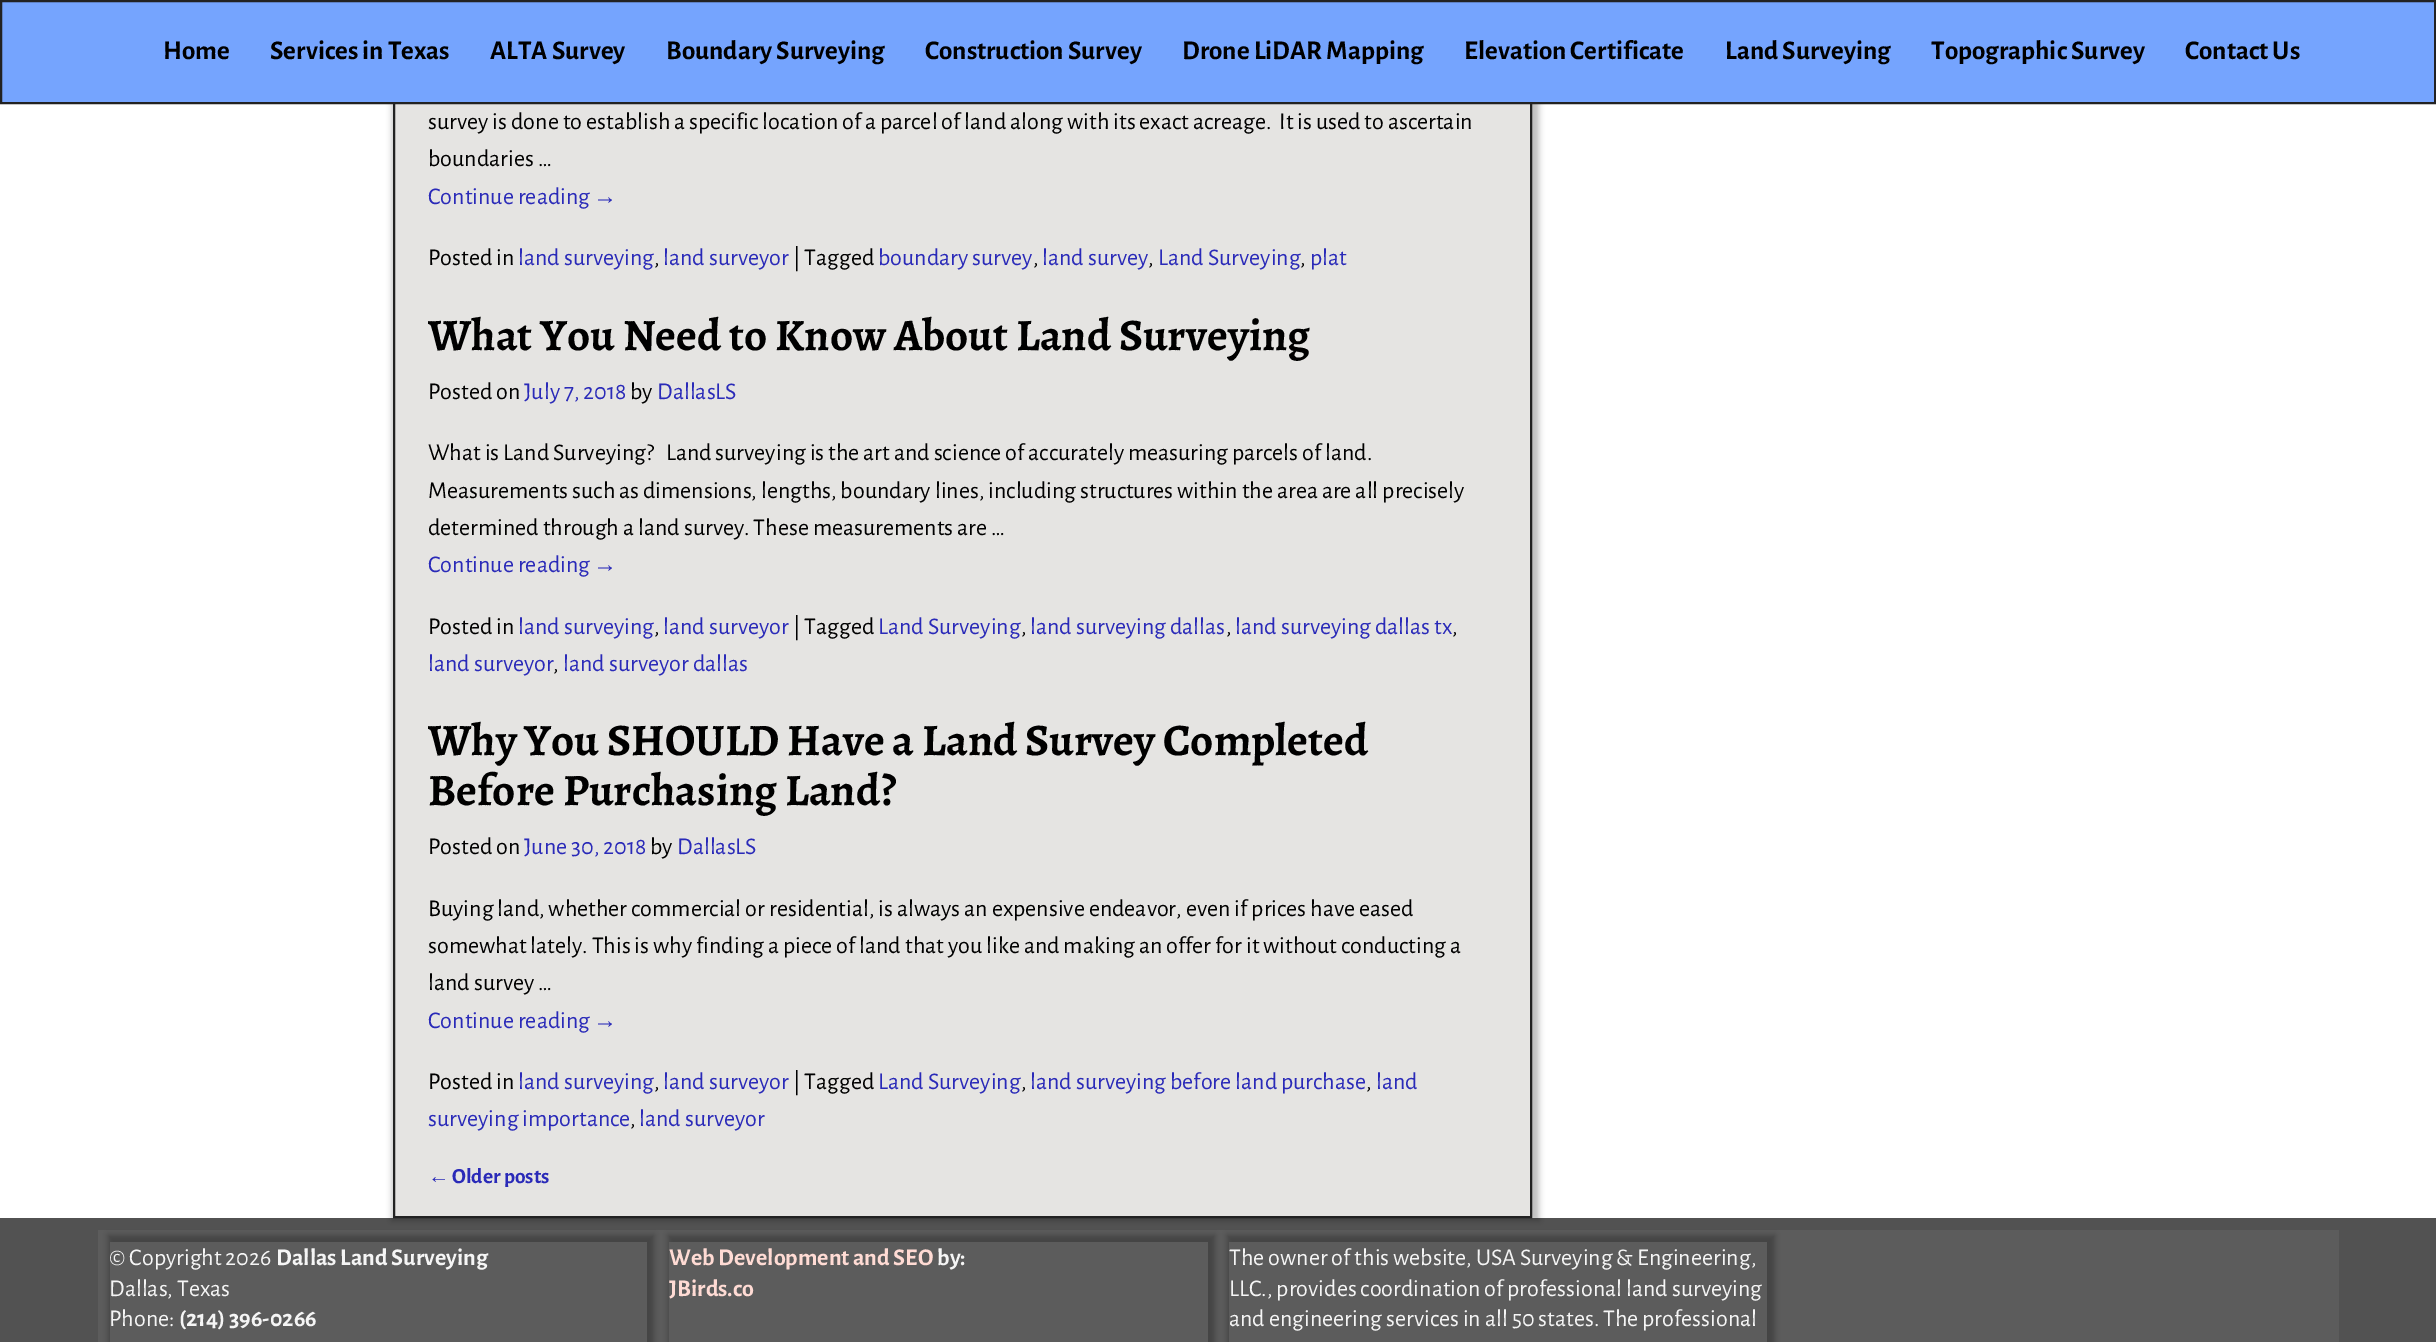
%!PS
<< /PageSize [2436 1342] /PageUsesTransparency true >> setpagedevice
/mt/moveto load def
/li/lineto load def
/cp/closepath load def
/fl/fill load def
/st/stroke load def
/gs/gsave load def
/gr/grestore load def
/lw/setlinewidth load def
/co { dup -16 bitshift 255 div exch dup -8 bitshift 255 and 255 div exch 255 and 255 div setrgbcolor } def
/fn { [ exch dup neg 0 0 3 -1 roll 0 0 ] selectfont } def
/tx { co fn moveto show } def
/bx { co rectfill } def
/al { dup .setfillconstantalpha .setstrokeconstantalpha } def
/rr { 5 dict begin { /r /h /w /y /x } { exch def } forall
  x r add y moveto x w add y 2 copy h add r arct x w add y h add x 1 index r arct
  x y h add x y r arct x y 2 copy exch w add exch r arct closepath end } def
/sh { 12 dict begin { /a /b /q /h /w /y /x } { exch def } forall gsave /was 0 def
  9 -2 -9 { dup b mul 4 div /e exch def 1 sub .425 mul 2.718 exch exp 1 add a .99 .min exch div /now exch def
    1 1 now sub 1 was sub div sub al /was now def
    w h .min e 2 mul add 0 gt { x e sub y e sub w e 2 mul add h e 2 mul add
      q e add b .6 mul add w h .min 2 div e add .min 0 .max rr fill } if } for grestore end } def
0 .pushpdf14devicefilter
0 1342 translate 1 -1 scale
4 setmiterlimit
0 0 2436 1342 16#FFFFFF bx
0 1218 2436 124 16#525252 bx
16#000000 co
392 -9 1147 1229 0 3 .25 sh
395 104 1135 1112 16#E5E4E2 bx
16#222222 co
2 lw
394 -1 1137 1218 rectstroke
16#75A4FE co
1 1 mt 2435 1 li 2435 103 li 1 103 li cp gs fl gr
16#222222 co
st
98 1230 2241 112 16#5C5C5C bx
gs
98 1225 mt 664 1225 li 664 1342 li 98 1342 li cp 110 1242 mt 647 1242 li 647 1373 li 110 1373 li cp eoclip newpath
16#000000 co
108 1235 546 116 0 3 .25 sh
gr
gs
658 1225 mt 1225 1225 li 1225 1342 li 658 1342 li cp 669 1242 mt 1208 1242 li 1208 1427 li 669 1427 li cp eoclip newpath
16#000000 co
668 1235 547 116 0 3 .25 sh
gr
gs
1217 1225 mt 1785 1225 li 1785 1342 li 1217 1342 li cp 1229 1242 mt 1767 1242 li 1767 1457 li 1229 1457 li cp eoclip newpath
16#000000 co
1227 1235 548 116 0 3 .25 sh
gr
(Home) 163 59 /AlegreyaSans-Bold 27 16#000000 tx
(Services in Texas) 270 59 /AlegreyaSans-Bold 27 16#000000 tx
(ALTA Survey) 490 59 /AlegreyaSans-Bold 27 16#000000 tx
(Boundary Surveying) 666 59 /AlegreyaSans-Bold 27 16#000000 tx
(Construction Survey) 925 59 /AlegreyaSans-Bold 27 16#000000 tx
(Drone LiDAR Mapping) 1182 59 /AlegreyaSans-Bold 27 16#000000 tx
(Elevation Certificate) 1464 59 /AlegreyaSans-Bold 27 16#000000 tx
(Land Surveying) 1725 59 /AlegreyaSans-Bold 27 16#000000 tx
(Topographic Survey) 1931 59 /AlegreyaSans-Bold 27 16#000000 tx
(Contact Us) 2185 59 /AlegreyaSans-Bold 27 16#000000 tx
(survey is done to establish a specific location of a parcel of land along with its exact acreage.  It is used to ascertain) 428 129 /AlegreyaSans-Regular 24 16#000000 tx
(boundaries …) 428 166 /AlegreyaSans-Regular 24 16#000000 tx
(Continue reading) 428 204 /AlegreyaSans-Regular 24 16#2A2AB8 tx
(→) 593 204 /LiberationSans-Regular 24 16#2A2AB8 tx
(Posted in) 428 265 /AlegreyaSans-Regular 24 16#000000 tx
(land surveying) 518 265 /AlegreyaSans-Regular 24 16#2A2AB8 tx
(,) 654 265 /AlegreyaSans-Regular 24 16#000000 tx
(land surveyor) 663 265 /AlegreyaSans-Regular 24 16#2A2AB8 tx
(| Tagged) 793 265 /AlegreyaSans-Regular 24 16#000000 tx
(boundary survey) 878 265 /AlegreyaSans-Regular 24 16#2A2AB8 tx
(,) 1033 265 /AlegreyaSans-Regular 24 16#000000 tx
(land survey) 1042 265 /AlegreyaSans-Regular 24 16#2A2AB8 tx
(,) 1148 265 /AlegreyaSans-Regular 24 16#000000 tx
(Land Surveying) 1158 265 /AlegreyaSans-Regular 24 16#2A2AB8 tx
(,) 1300 265 /AlegreyaSans-Regular 24 16#000000 tx
(plat) 1310 265 /AlegreyaSans-Regular 24 16#2A2AB8 tx
gs
428 300 1069 383 rectclip
(What You Need to Know About Land Surveying) 428 350 /Alegreya-Bold 45 16#000000 tx
gr
(Posted on) 428 399 /AlegreyaSans-Regular 24 16#000000 tx
(July 7, 2018) 524 399 /AlegreyaSans-Regular 24 16#2A2AB8 tx
(by) 630 399 /AlegreyaSans-Regular 24 16#000000 tx
(DallasLS) 657 399 /AlegreyaSans-Regular 24 16#2A2AB8 tx
(What is Land Surveying?   Land surveying is the art and science of accurately measuring parcels of land.) 428 460 /AlegreyaSans-Regular 24 16#000000 tx
(Measurements such as dimensions, lengths, boundary lines, including structures within the area are all precisely) 428 498 /AlegreyaSans-Regular 24 16#000000 tx
(determined through a land survey. These measurements are …) 428 535 /AlegreyaSans-Regular 24 16#000000 tx
(Continue reading) 428 572 /AlegreyaSans-Regular 24 16#2A2AB8 tx
(→) 593 572 /LiberationSans-Regular 24 16#2A2AB8 tx
(Posted in) 428 634 /AlegreyaSans-Regular 24 16#000000 tx
(land surveying) 518 634 /AlegreyaSans-Regular 24 16#2A2AB8 tx
(,) 654 634 /AlegreyaSans-Regular 24 16#000000 tx
(land surveyor) 663 634 /AlegreyaSans-Regular 24 16#2A2AB8 tx
(| Tagged) 793 634 /AlegreyaSans-Regular 24 16#000000 tx
(Land Surveying) 878 634 /AlegreyaSans-Regular 24 16#2A2AB8 tx
(,) 1021 634 /AlegreyaSans-Regular 24 16#000000 tx
(land surveying dallas) 1030 634 /AlegreyaSans-Regular 24 16#2A2AB8 tx
(,) 1226 634 /AlegreyaSans-Regular 24 16#000000 tx
(land surveying dallas tx) 1235 634 /AlegreyaSans-Regular 24 16#2A2AB8 tx
(,) 1452 634 /AlegreyaSans-Regular 24 16#000000 tx
(land surveyor) 428 671 /AlegreyaSans-Regular 24 16#2A2AB8 tx
(,) 553 671 /AlegreyaSans-Regular 24 16#000000 tx
(land surveyor dallas) 563 671 /AlegreyaSans-Regular 24 16#2A2AB8 tx
gs
428 705 1069 434 rectclip
(Why You SHOULD Have a Land Survey Completed) 428 755 /Alegreya-Bold 45 16#000000 tx
gr
(Before Purchasing Land?) 428 805 /Alegreya-Bold 45 16#000000 tx
(Posted on) 428 854 /AlegreyaSans-Regular 24 16#000000 tx
(June 30, 2018) 524 854 /AlegreyaSans-Regular 24 16#2A2AB8 tx
(by) 650 854 /AlegreyaSans-Regular 24 16#000000 tx
(DallasLS) 677 854 /AlegreyaSans-Regular 24 16#2A2AB8 tx
(Buying land, whether commercial or residential, is always an expensive endeavor, even if prices have eased) 428 916 /AlegreyaSans-Regular 24 16#000000 tx
(somewhat lately. This is why finding a piece of land that you like and making an offer for it without conducting a) 428 953 /AlegreyaSans-Regular 24 16#000000 tx
(land survey …) 428 990 /AlegreyaSans-Regular 24 16#000000 tx
(Continue reading) 428 1028 /AlegreyaSans-Regular 24 16#2A2AB8 tx
(→) 593 1028 /LiberationSans-Regular 24 16#2A2AB8 tx
(Posted in) 428 1089 /AlegreyaSans-Regular 24 16#000000 tx
(land surveying) 518 1089 /AlegreyaSans-Regular 24 16#2A2AB8 tx
(,) 654 1089 /AlegreyaSans-Regular 24 16#000000 tx
(land surveyor) 663 1089 /AlegreyaSans-Regular 24 16#2A2AB8 tx
(| Tagged) 793 1089 /AlegreyaSans-Regular 24 16#000000 tx
(Land Surveying) 878 1089 /AlegreyaSans-Regular 24 16#2A2AB8 tx
(,) 1021 1089 /AlegreyaSans-Regular 24 16#000000 tx
(land surveying before land purchase) 1030 1089 /AlegreyaSans-Regular 24 16#2A2AB8 tx
(,) 1366 1089 /AlegreyaSans-Regular 24 16#000000 tx
(land) 1376 1089 /AlegreyaSans-Regular 24 16#2A2AB8 tx
(surveying importance) 428 1126 /AlegreyaSans-Regular 24 16#2A2AB8 tx
(,) 630 1126 /AlegreyaSans-Regular 24 16#000000 tx
(land surveyor) 639 1126 /AlegreyaSans-Regular 24 16#2A2AB8 tx
(←) 428 1183 /LiberationSans-Regular 21.5 16#2A2AB8 tx
(Older posts) 452 1183 /AlegreyaSans-Bold 21.5 16#2A2AB8 tx
(© Copyright 2026) 109 1265 /AlegreyaSans-Regular 24 16#F5F5F5 tx
(Dallas Land Surveying) 276 1265 /AlegreyaSans-Bold 24 16#F5F5F5 tx
(Dallas, Texas) 109 1296 /AlegreyaSans-Regular 24 16#F5F5F5 tx
(Phone:) 109 1326 /AlegreyaSans-Regular 24 16#F5F5F5 tx
(\(214\) 396-0266) 179 1326 /AlegreyaSans-Bold 24 16#F5F5F5 tx
(Web Development and SEO) 669 1265 /AlegreyaSans-Bold 24 16#FFDBD4 tx
(by:) 937 1265 /AlegreyaSans-Bold 24 16#F5F5F5 tx
(JBirds.co) 669 1296 /AlegreyaSans-Bold 24 16#FFDBD4 tx
(The owner of this website, USA Surveying & Engineering,) 1229 1265 /AlegreyaSans-Regular 24 16#F5F5F5 tx
(LLC., provides coordination of professional land surveying) 1229 1296 /AlegreyaSans-Regular 24 16#F5F5F5 tx
(and engineering services in all 50 states. The professional) 1229 1326 /AlegreyaSans-Regular 24 16#F5F5F5 tx
.poppdf14devicefilter showpage
